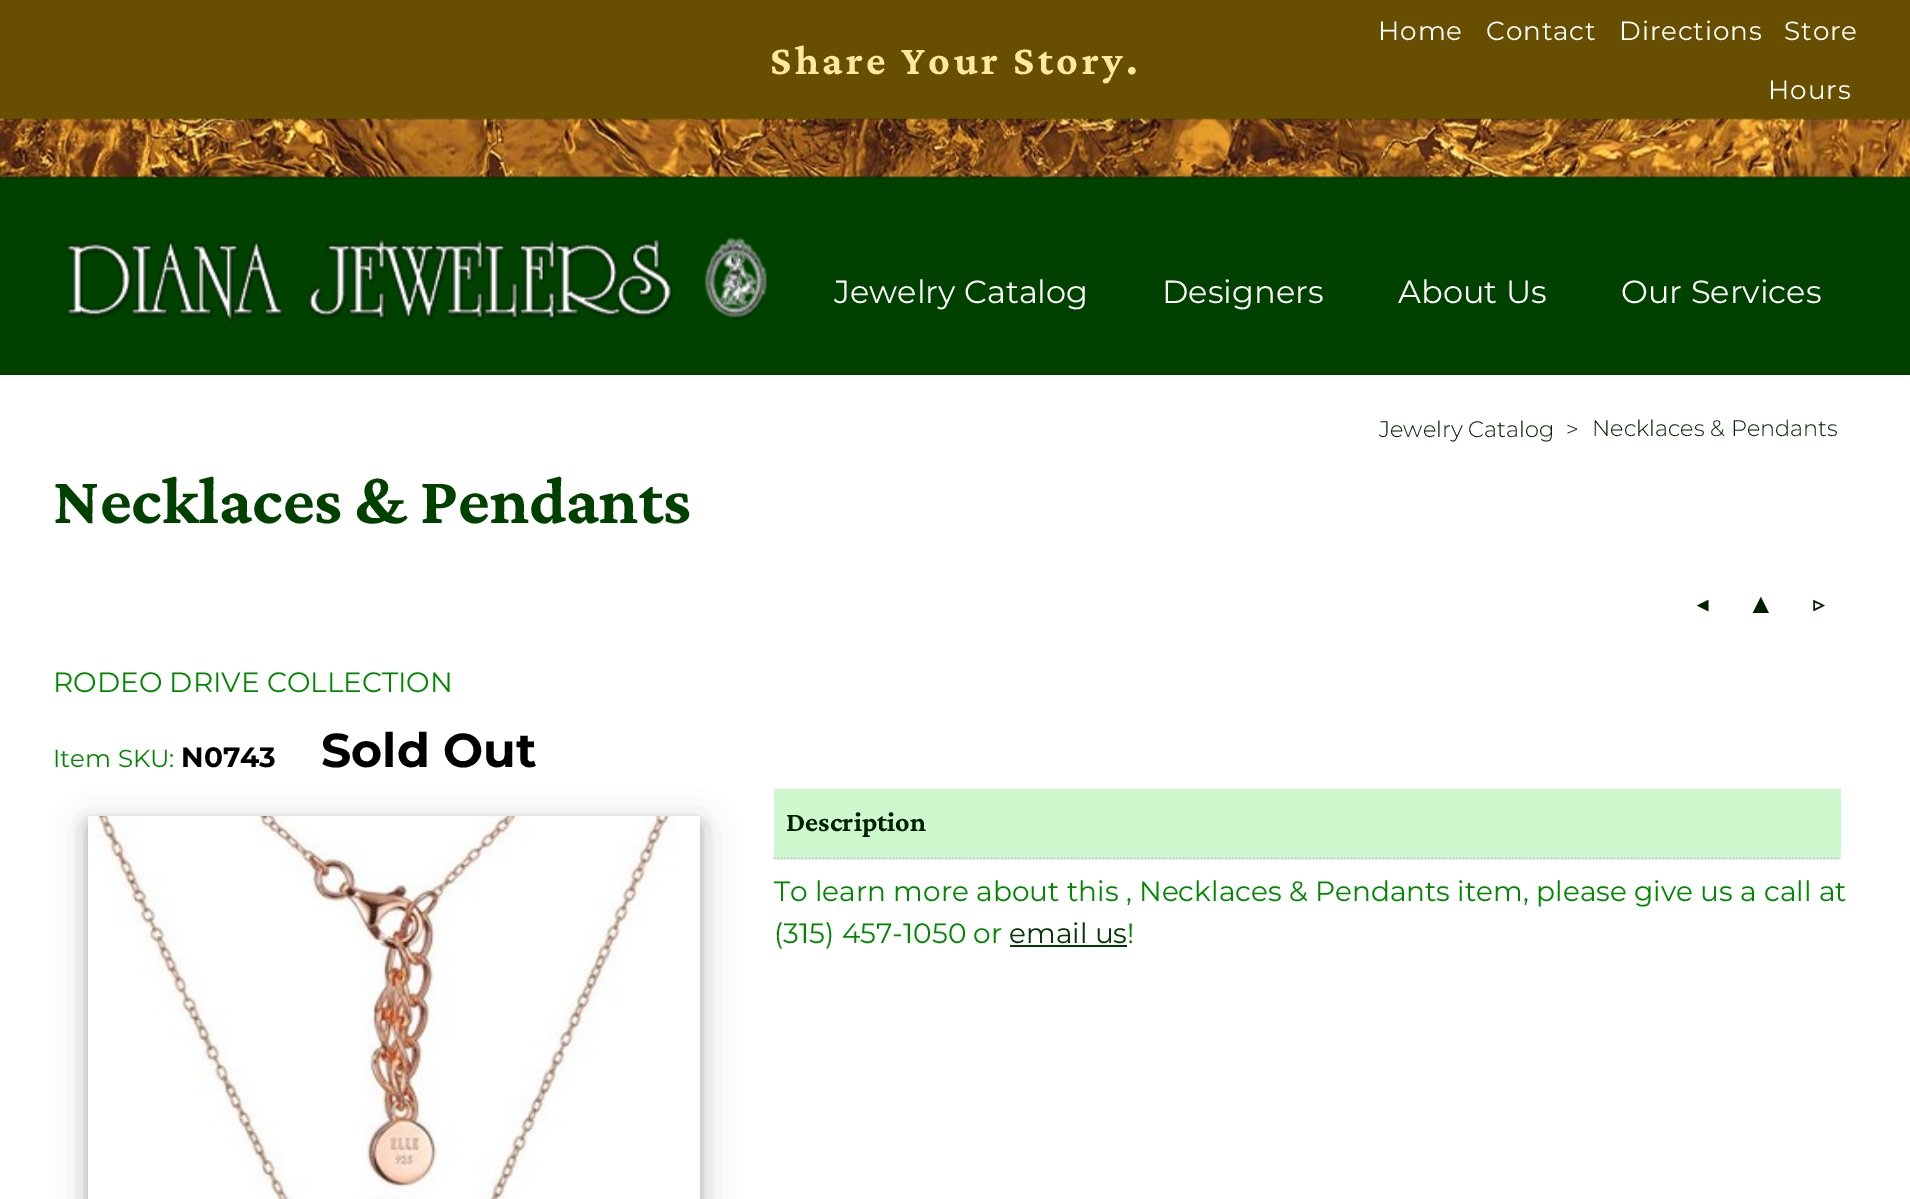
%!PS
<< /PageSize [1910 1199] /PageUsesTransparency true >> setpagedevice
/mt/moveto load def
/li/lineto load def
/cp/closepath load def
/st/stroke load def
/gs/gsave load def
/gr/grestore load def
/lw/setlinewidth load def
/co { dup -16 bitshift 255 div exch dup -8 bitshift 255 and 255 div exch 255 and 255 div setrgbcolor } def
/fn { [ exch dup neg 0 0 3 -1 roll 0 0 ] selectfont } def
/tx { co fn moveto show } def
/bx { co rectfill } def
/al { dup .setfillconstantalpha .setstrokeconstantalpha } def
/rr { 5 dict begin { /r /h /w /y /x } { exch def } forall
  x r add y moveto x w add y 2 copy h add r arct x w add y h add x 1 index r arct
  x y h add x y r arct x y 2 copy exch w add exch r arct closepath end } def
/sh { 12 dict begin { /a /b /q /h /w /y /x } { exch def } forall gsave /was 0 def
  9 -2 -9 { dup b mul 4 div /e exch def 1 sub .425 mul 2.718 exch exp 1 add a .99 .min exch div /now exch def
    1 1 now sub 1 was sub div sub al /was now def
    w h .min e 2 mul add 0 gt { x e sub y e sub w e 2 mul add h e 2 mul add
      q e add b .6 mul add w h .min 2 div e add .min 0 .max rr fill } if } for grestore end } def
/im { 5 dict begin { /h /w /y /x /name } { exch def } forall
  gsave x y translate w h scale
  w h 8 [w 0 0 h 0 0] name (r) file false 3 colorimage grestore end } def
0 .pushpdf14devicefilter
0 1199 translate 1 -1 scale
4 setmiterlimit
0 0 1910 1199 16#FFFFFF bx
0 179 1910 194 16#004100 bx
0 373 1910 2 16#023802 bx
0 119 1910 60 16#023802 bx
0 0 1910 119 16#674E00 bx
(media/1.raw) 0 118 1910 60 im
(media/2.raw) 65 237 702 86 im
gs
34 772 mt 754 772 li 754 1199 li 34 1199 li cp 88 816 mt 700 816 li 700 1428 li 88 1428 li cp eoclip newpath
16#000000 co
88 826 612 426 0 17.5 .19 sh
gr
gs
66 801 mt 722 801 li 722 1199 li 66 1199 li cp 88 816 mt 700 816 li 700 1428 li 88 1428 li cp eoclip newpath
16#000000 co
88 823 612 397 0 7 .2 sh
gr
(media/3.raw) 88 816 588 383 im
774 789 1067 70 16#CEF9CE bx
16#C5C5C5 co
1.8 lw
[1.75 1.75] 0 setdash
773.5 858.5 mt 1841 858.5 li st
1010 945 117 2 16#023802 bx
/CrimsonPro-Bold 42 fn
16#FFE9A0 co
770 74 mt 3.5 0 (Share Your Story.) ashow
/Montserrat-Regular 26.25 fn
16#FFFFFF co
1378 40 mt .9 0 (Home) ashow
1486 40 mt .9 0 (Contact) ashow
1619 40 mt .9 0 (Directions) ashow
1784 40 mt .9 0 (Store) ashow
1768 99 mt .9 0 (Hours) ashow
(Jewelry Catalog) 834 303 /Montserrat-Regular 32 16#FFFFFF tx
(Designers) 1162 303 /Montserrat-Regular 32 16#FFFFFF tx
(About Us) 1398 303 /Montserrat-Regular 32 16#FFFFFF tx
(Our Services) 1621 303 /Montserrat-Regular 32 16#FFFFFF tx
(Jewelry Catalog) 1379 437 /Montserrat-Light 22.4 16#002100 tx
(>) 1566 437 /Montserrat-Light 22.4 16#002100 tx
(Necklaces & Pendants) 1592 436 /Montserrat-Light 22.4 16#002100 tx
(Necklaces & Pendants) 53 523 /CrimsonPro-Bold 68.25 16#004100 tx
(◀) 1695 613 /Montserrat-Bold 28 16#002100 tx
(▲) 1747 613 /LiberationSans-Bold 28 16#002100 tx
(▷) 1810 613 /Montserrat-Bold 28 16#002100 tx
(RODEO DRIVE COLLECTION) 53 692 /Montserrat-Regular 28 16#008700 tx
(Item SKU:) 53 767 /Montserrat-Regular 24.5 16#008700 tx
(N0743) 181 767 /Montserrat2-Bold 28 16#000000 tx
(Sold Out) 321 767 /Montserrat2-Bold 47.5 16#000000 tx
(Description) 786 831 /CrimsonPro-Bold 28 16#002100 tx
(To learn more about this , Necklaces & Pendants item, please give us a call at) 774 901 /Montserrat-Regular 28 16#008700 tx
(\(315\) 457-1050 or) 774 943 /Montserrat-Regular 28 16#008700 tx
(email us) 1009 943 /Montserrat-Regular 28 16#023802 tx
(!) 1127 943 /Montserrat-Regular 28 16#008700 tx
.poppdf14devicefilter showpage
